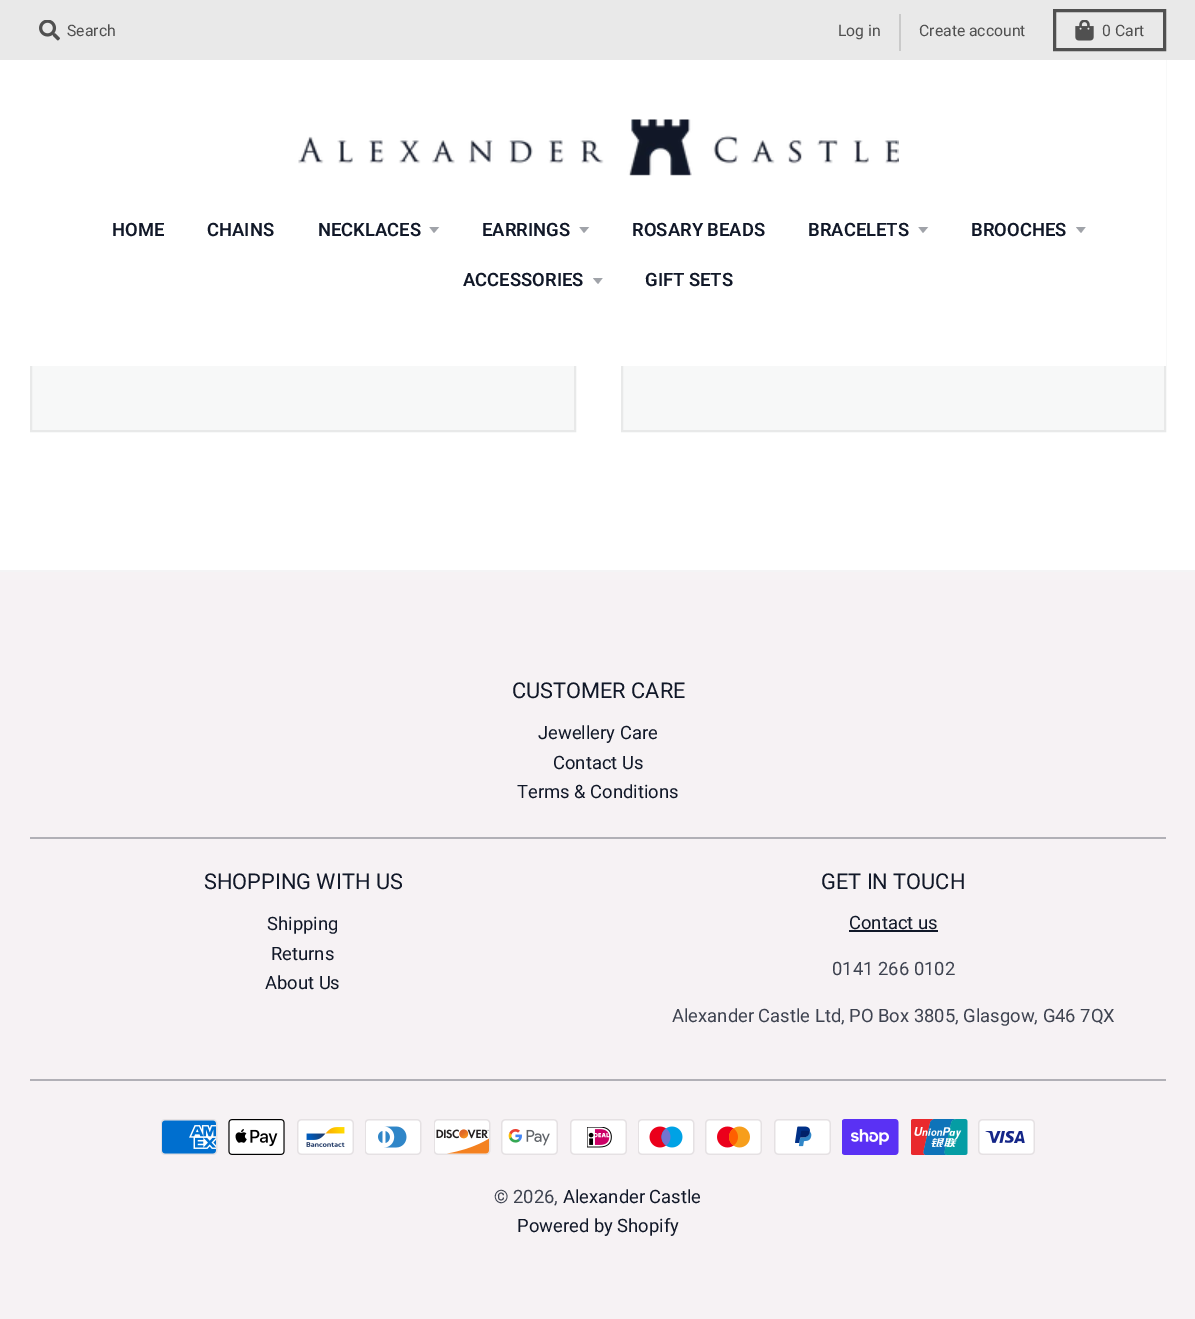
%!PS
<< /PageSize [1195 1319] >> setpagedevice
/mt/moveto load def
/li/lineto load def
/cp/closepath load def
/fl/fill load def
/gs/gsave load def
/gr/grestore load def
/lw/setlinewidth load def
/co { dup -16 bitshift 255 div exch dup -8 bitshift 255 and 255 div exch 255 and 255 div setrgbcolor } def
/fn { [ exch dup neg 0 0 3 -1 roll 0 0 ] selectfont } def
/tx { co fn moveto show } def
/bx { co rectfill } def
/im { 5 dict begin { /h /w /y /x /name } { exch def } forall
  gsave x y translate w h scale
  w h 8 [w 0 0 h 0 0] name (r) file false 3 colorimage grestore end } def
0 1319 translate 1 -1 scale
4 setmiterlimit
0 0 1195 1319 16#FFFFFF bx
0 570 1195 2 16#F4F4F5 bx
32 366 542 64 16#F7F8F8 bx
16#E8E9E9 co
2 lw
31 -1 544 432 rectstroke
623 366 541 64 16#F7F8F8 bx
16#E8E9E9 co
622 -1 543 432 rectstroke
0 0 1195 60 16#E9E9E9 bx
(media/1.raw) 39 20 21 21 im
899 14 2 37 16#CACACA bx
16#505050 co
3 lw
1054.5 10.5 110 39 rectstroke
(media/2.raw) 1075 20 19 21 im
30 60 1136 306 16#FFFFFF bx
(media/3.raw) 298 119 601 57 im
gs
429 227 12 7 rectclip
16#A0A3A9 co
429 226.5 mt 434 233 li 439.5 226.5 li cp fl
gr
gs
579 227 12 7 rectclip
16#A0A3A9 co
579 226.5 mt 584 233 li 589.5 226.5 li cp fl
gr
gs
918 227 12 7 rectclip
16#A0A3A9 co
918 226.5 mt 923 233 li 928.5 226.5 li cp fl
gr
gs
1076 227 12 7 rectclip
16#A0A3A9 co
1075.5 226.5 mt 1081 233 li 1086 226.5 li cp fl
gr
gs
593 278 12 7 rectclip
16#A0A3A9 co
592.5 277.5 mt 598 284 li 603 277.5 li cp fl
gr
0 572 1195 747 16#F6F2F4 bx
30 837 1136 2 16#B1B0B6 bx
849 930 89 2 16#111828 bx
30 1079 1136 2 16#B1B0B6 bx
(media/4.raw) 161 1119 57 36 im
(media/5.raw) 228 1119 57 36 im
(media/6.raw) 297 1119 57 36 im
(media/7.raw) 365 1119 57 36 im
(media/8.raw) 434 1119 57 36 im
(media/9.raw) 501 1119 57 36 im
(media/10.raw) 570 1119 57 36 im
(media/11.raw) 638 1119 57 36 im
(media/12.raw) 705 1119 57 36 im
(media/13.raw) 774 1119 57 36 im
(media/14.raw) 842 1119 57 36 im
(media/15.raw) 911 1119 57 36 im
(media/16.raw) 978 1119 57 36 im
(Search) 67 36 /Roboto-Regular 15.75 16#505050 tx
(Log in) 838 36 /Roboto-Regular 15.75 16#505050 tx
(Create account) 919 36 /Roboto-Regular 15.75 16#505050 tx
(0 Cart) 1102 36 /Roboto-Regular 15.75 16#505050 tx
(HOME) 112 236 /Roboto-SemiBold 18.4 16#111828 tx
(CHAINS) 207 236 /Roboto-SemiBold 18.4 16#111828 tx
(NECKLACES) 318 236 /Roboto-SemiBold 18.4 16#111828 tx
(EARRINGS) 482 236 /Roboto-SemiBold 18.4 16#111828 tx
(ROSARY BEADS) 632 236 /Roboto-SemiBold 18.4 16#111828 tx
(BRACELETS) 808 236 /Roboto-SemiBold 18.4 16#111828 tx
(BROOCHES) 971 236 /Roboto-SemiBold 18.4 16#111828 tx
(ACCESSORIES) 463 286 /Roboto-SemiBold 18.4 16#111828 tx
(GIFT SETS) 645 286 /Roboto-SemiBold 18.4 16#111828 tx
(CUSTOMER CARE) 512 698 /Roboto-Regular 21.75 16#111828 tx
(Jewellery Care) 538 739 /Roboto-Regular 18.4 16#111828 tx
(Contact Us) 553 769 /Roboto-Regular 18.4 16#111828 tx
(Terms & Conditions) 517 798 /Roboto-Regular 18.4 16#111828 tx
(SHOPPING WITH US) 204 889 /Roboto-Regular 21.75 16#111828 tx
(Shipping) 267 930 /Roboto-Regular 18.4 16#111828 tx
(Returns) 271 960 /Roboto-Regular 18.4 16#111828 tx
(About Us) 265 989 /Roboto-Regular 18.4 16#111828 tx
(GET IN TOUCH) 821 889 /Roboto-Regular 21.75 16#111828 tx
(Contact us) 849 929 /Roboto-Regular 18.4 16#111828 tx
(0141 266 0102) 832 975 /Roboto-Regular 18.4 16#3E4350 tx
(Alexander Castle Ltd, PO Box 3805, Glasgow, G46 7QX) 672 1022 /Roboto-Regular 18.4 16#3E4350 tx
(© 2026,) 494 1203 /Roboto-Regular 18.4 16#3E4350 tx
(Alexander Castle) 563 1203 /Roboto-Regular 18.4 16#111828 tx
(Powered by Shopify) 517 1232 /Roboto-Regular 18.4 16#111828 tx
showpage
